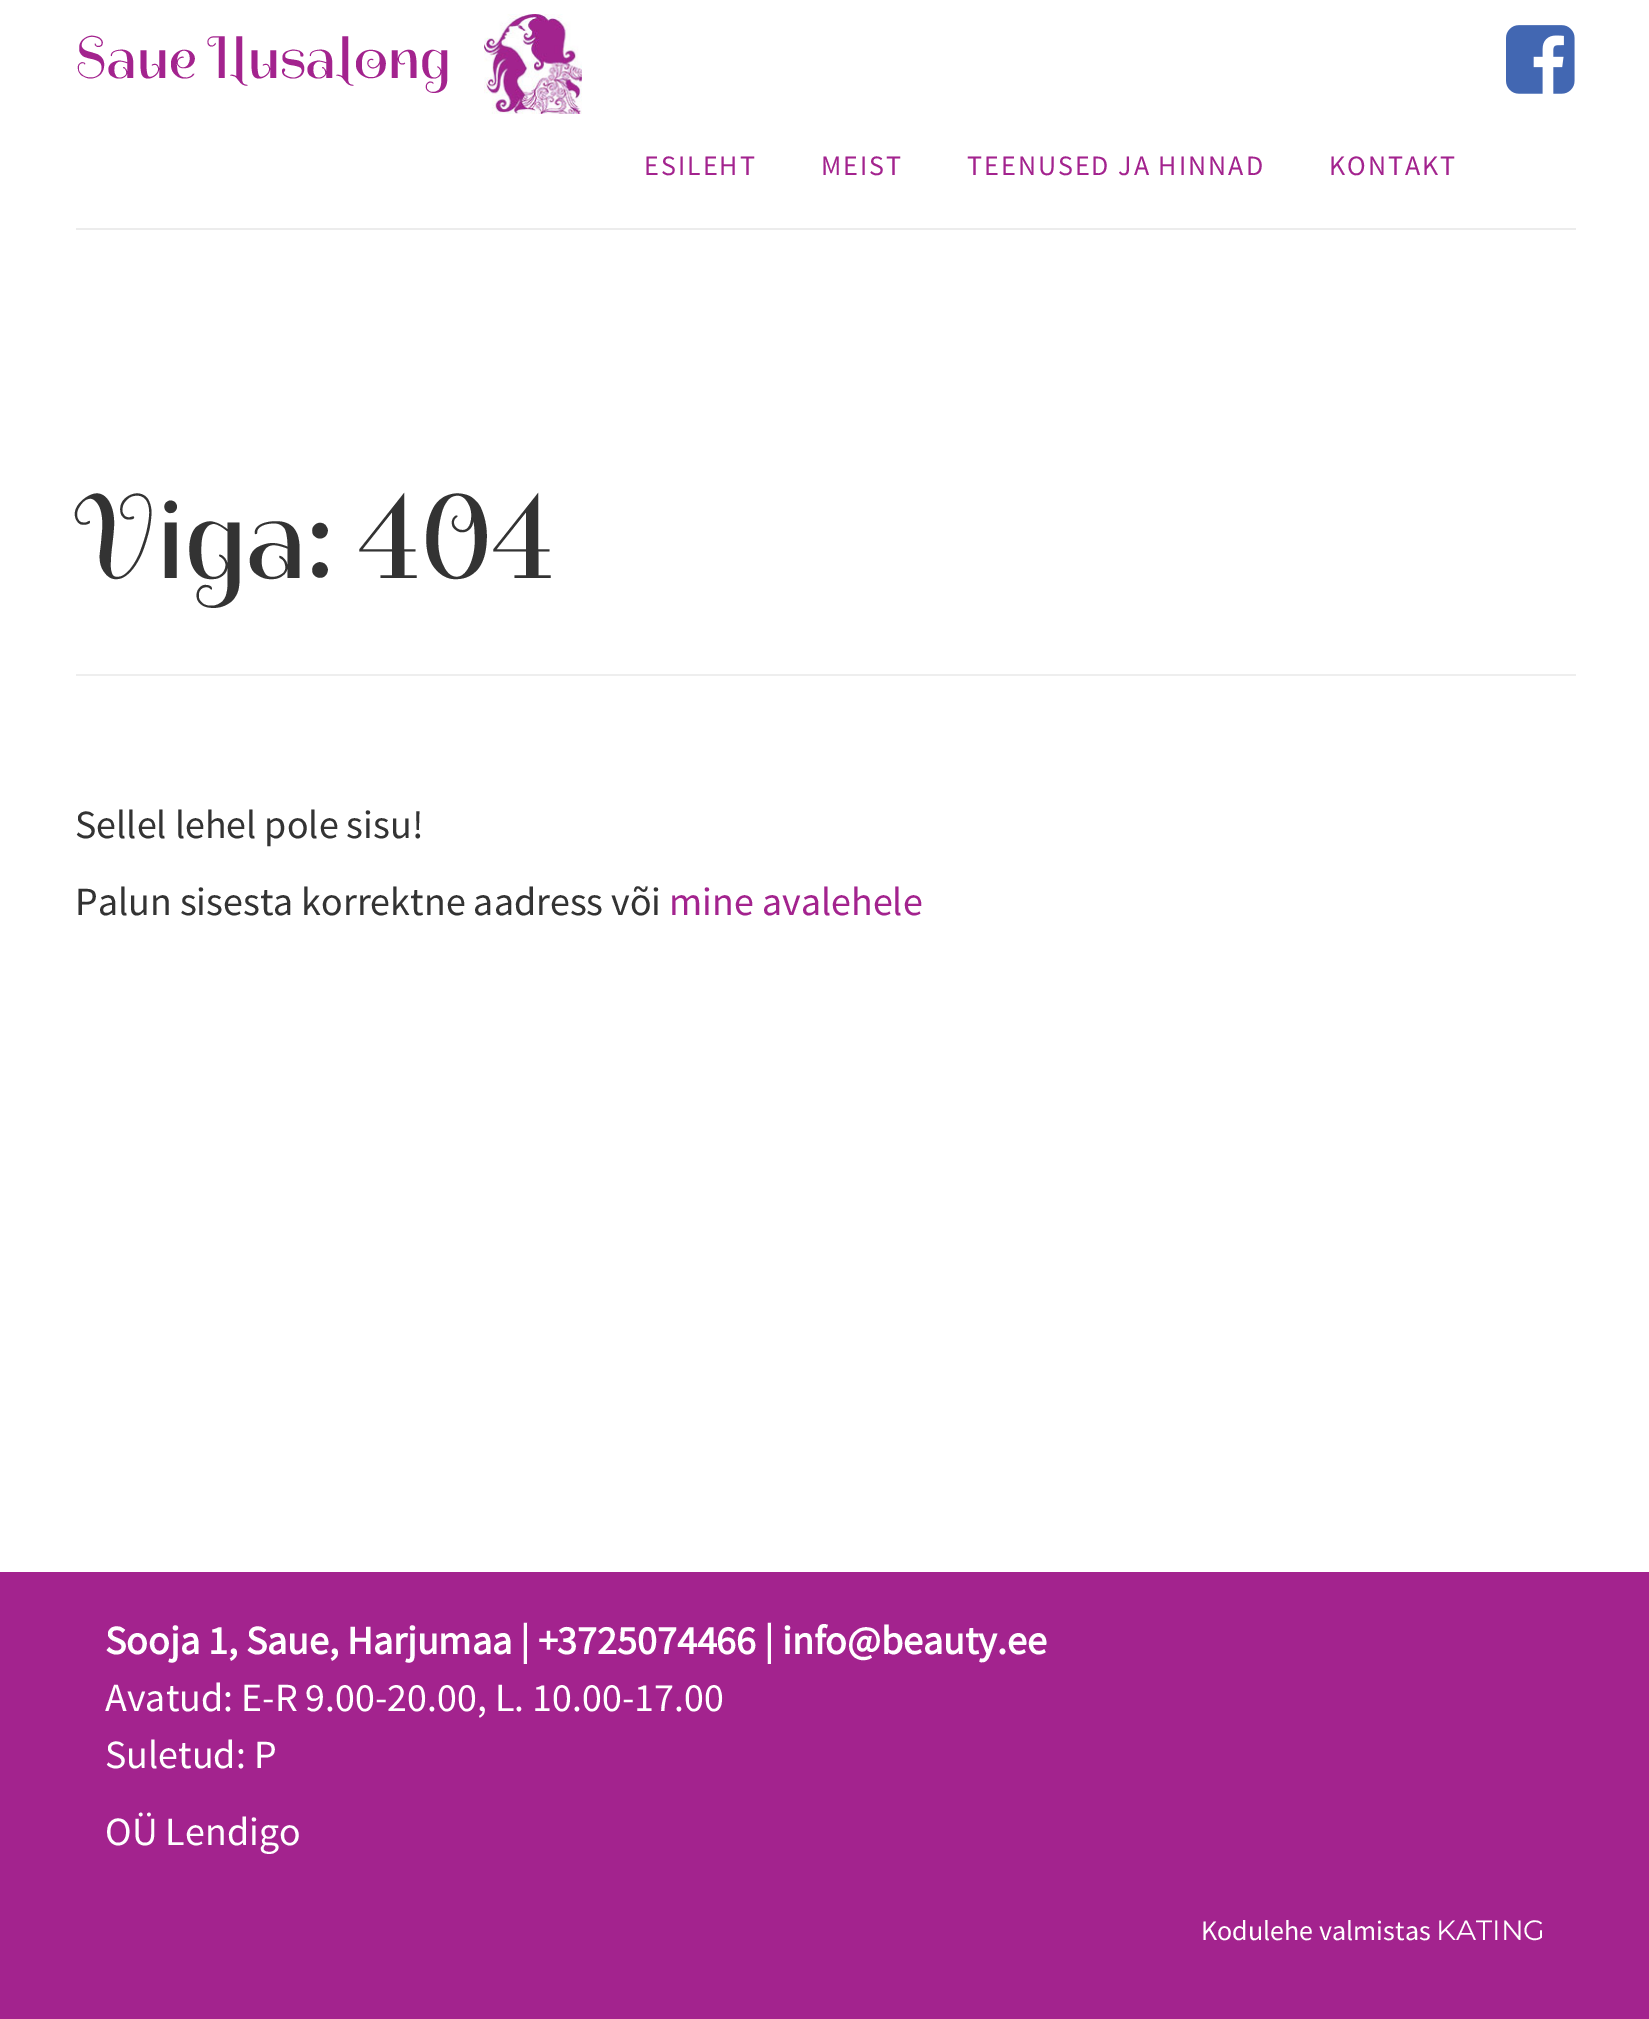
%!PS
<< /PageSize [1649 2019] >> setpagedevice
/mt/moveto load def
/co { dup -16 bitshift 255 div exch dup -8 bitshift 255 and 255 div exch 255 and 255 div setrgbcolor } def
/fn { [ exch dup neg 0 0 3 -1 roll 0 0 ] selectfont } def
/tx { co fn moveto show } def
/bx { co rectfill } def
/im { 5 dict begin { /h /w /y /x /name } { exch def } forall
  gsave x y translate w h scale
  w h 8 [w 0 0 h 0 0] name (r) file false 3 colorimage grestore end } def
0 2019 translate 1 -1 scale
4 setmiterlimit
0 0 1649 2019 16#FFFFFF bx
76 228 1500 2 16#ECECEC bx
(media/1.raw) 484 14 98 100 im
(media/2.raw) 1506 25 69 69 im
76 674 1500 2 16#EEEEEE bx
0 1572 1649 447 16#A3238E bx
(Saue Ilusalong) 75 78 /Spirax-Regular 60 16#A3238E tx
/SourceSansPro-Regular 28 fn
644 175 mt 2 0 (ESILEHT) ashow
821 175 mt 2 0 (MEIST) ashow
967 175 mt 2 0 (TEENUSED JA HINNAD) ashow
1329 175 mt 2 0 (KONTAKT) ashow
(Viga: 404) 75 578 /Spirax-Regular 120 16#333333 tx
(Sellel lehel pole sisu!) 75 838 /SourceSansPro-Regular 40 16#333333 tx
(Palun sisesta korrektne aadress või) 75 915 /SourceSansPro-Regular 40 16#333333 tx
(mine avalehele) 669 915 /SourceSansPro-Regular 40 16#A3238E tx
(Sooja 1, Saue, Harjumaa | +3725074466 | info@beauty.ee) 105 1654 /SourceSansPro-Bold 40 16#FFFFFF tx
(Avatud: E-R 9.00-20.00, L. 10.00-17.00) 105 1711 /SourceSansPro-Regular 40 16#FFFFFF tx
(Suletud: P) 105 1768 /SourceSansPro-Regular 40 16#FFFFFF tx
(OÜ Lendigo) 105 1845 /SourceSansPro-Regular 40 16#FFFFFF tx
(Kodulehe valmistas) 1201 1940 /SourceSansPro-Regular 28 16#FFFFFF tx
(KATING) 1436 1940 /Montserrat-Regular 28 16#FFFFFF tx
showpage
